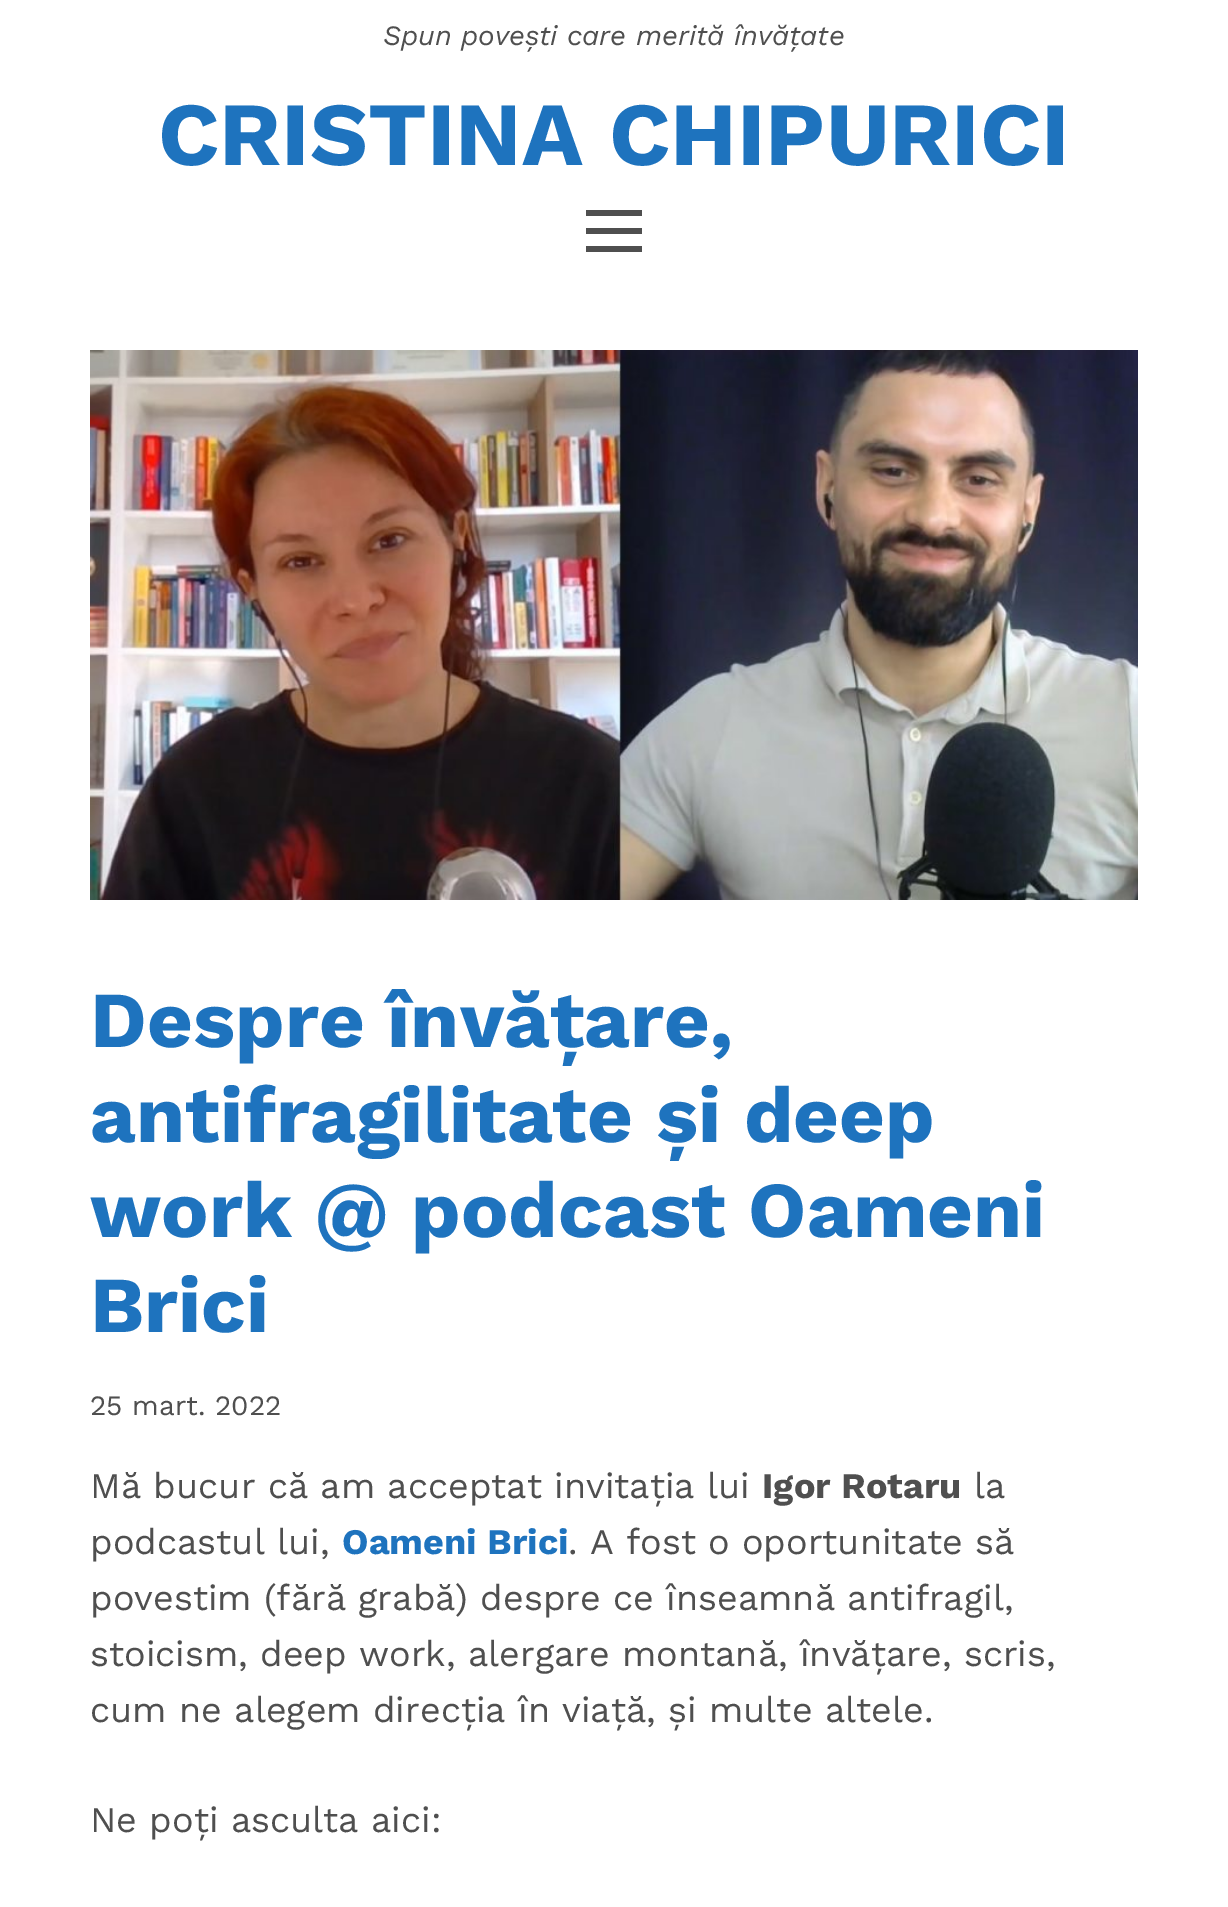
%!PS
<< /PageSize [1228 1907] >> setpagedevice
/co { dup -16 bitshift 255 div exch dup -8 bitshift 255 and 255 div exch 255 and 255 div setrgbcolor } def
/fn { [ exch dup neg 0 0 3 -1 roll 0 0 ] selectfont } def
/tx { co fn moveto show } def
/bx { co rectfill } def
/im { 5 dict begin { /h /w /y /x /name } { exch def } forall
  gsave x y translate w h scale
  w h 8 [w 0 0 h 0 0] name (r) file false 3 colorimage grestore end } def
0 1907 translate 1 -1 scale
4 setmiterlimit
0 0 1228 1907 16#FFFFFF bx
586 228 56 6 16#4F4F4F bx
586 210 56 6 16#4F4F4F bx
586 246 56 6 16#4F4F4F bx
(media/1.raw) 90 350 1048 550 im
(Spun povești care merită învățate) 383 45 /WorkSans-Italic 28 16#4F4F4F tx
(CRISTINA CHIPURICI) 158 165 /WorkSans-Bold 90 16#1E73BE tx
(Despre învățare,) 90 1047 /WorkSans-Bold 79.25 16#1E73BE tx
(antifragilitate și deep) 90 1142 /WorkSans-Bold 79.25 16#1E73BE tx
(work @ podcast Oameni) 90 1237 /WorkSans-Bold 79.25 16#1E73BE tx
(Brici) 90 1332 /WorkSans-Bold 79.25 16#1E73BE tx
(25 mart. 2022) 90 1415 /WorkSans-Regular 28 16#4F4F4F tx
(Mă bucur că am acceptat invitația lui) 90 1498 /WorkSans-Regular 36 16#4F4F4F tx
(Igor Rotaru) 762 1498 /WorkSans-Bold 36 16#4F4F4F tx
(la) 974 1498 /WorkSans-Regular 36 16#4F4F4F tx
(podcastul lui,) 90 1554 /WorkSans-Regular 36 16#4F4F4F tx
(Oameni Brici) 342 1554 /WorkSans-Bold 36 16#1E73BE tx
(. A fost o oportunitate să) 568 1554 /WorkSans-Regular 36 16#4F4F4F tx
(povestim \(fără grabă\) despre ce înseamnă antifragil,) 90 1610 /WorkSans-Regular 36 16#4F4F4F tx
(stoicism, deep work, alergare montană, învățare, scris,) 90 1666 /WorkSans-Regular 36 16#4F4F4F tx
(cum ne alegem direcția în viață, și multe altele.) 90 1722 /WorkSans-Regular 36 16#4F4F4F tx
(Ne poți asculta aici:) 90 1832 /WorkSans-Regular 36 16#4F4F4F tx
showpage
